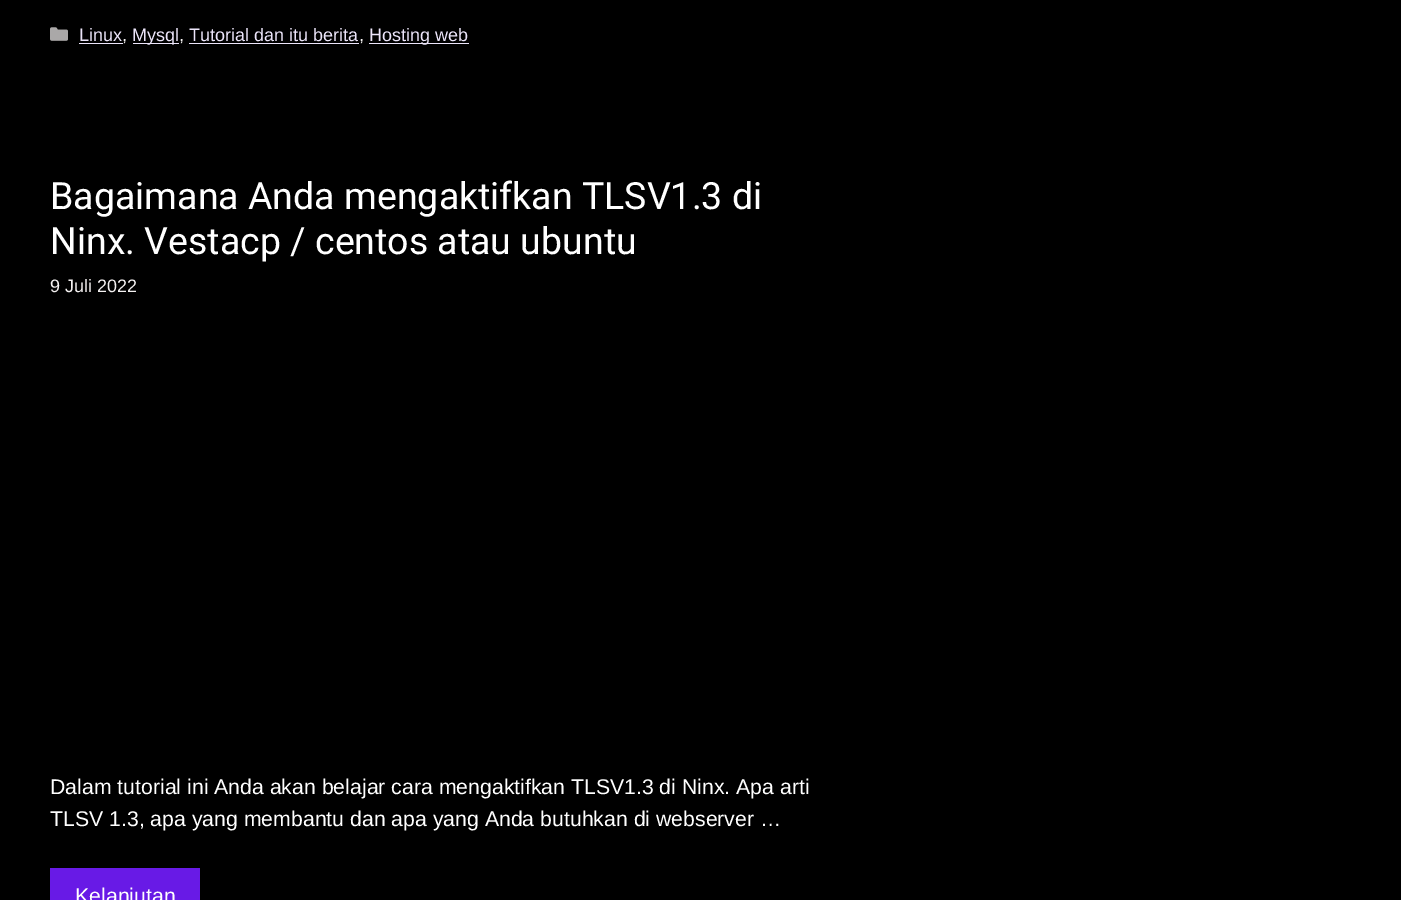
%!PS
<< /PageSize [1401 900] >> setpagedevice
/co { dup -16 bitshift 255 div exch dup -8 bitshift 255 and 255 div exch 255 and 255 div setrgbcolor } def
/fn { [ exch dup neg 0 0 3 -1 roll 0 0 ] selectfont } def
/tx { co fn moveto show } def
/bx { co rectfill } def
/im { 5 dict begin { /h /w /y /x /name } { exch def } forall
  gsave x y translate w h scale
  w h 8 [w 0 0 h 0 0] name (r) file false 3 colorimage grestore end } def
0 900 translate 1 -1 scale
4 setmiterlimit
0 0 1401 900 16#000000 bx
(media/1.raw) 50 27 18 14 im
79 43 44 1 16#ECE5FA bx
133 43 46 1 16#ECE5FA bx
189 43 170 1 16#ECE5FA bx
369 43 100 1 16#ECE5FA bx
50 868 150 32 16#681AE6 bx
(Linux) 79 41 /LiberationSans-Regular 18 16#ECE5FA tx
(,) 122 41 /LiberationSans-Regular 18 16#F4F1F1 tx
(Mysql) 132 41 /LiberationSans-Regular 18 16#ECE5FA tx
(,) 179 41 /LiberationSans-Regular 18 16#F4F1F1 tx
(Tutorial dan itu berita) 189 41 /LiberationSans-Regular 18 16#ECE5FA tx
(,) 359 41 /LiberationSans-Regular 18 16#F4F1F1 tx
(Hosting web) 369 41 /LiberationSans-Regular 18 16#ECE5FA tx
(Bagaimana Anda mengaktifkan TLSV1.3 di) 50 209 /Roboto-Regular 37.5 16#FFFFFF tx
(Ninx. Vestacp / centos atau ubuntu) 50 254 /Roboto-Regular 37.5 16#FFFFFF tx
(9 Juli 2022) 50 292 /LiberationSans-Regular 18 16#F4F1F1 tx
(Dalam tutorial ini Anda akan belajar cara mengaktifkan TLSV1.3 di Ninx. Apa arti) 50 794 /LiberationSans-Regular 21.25 16#FFFFFF tx
(TLSV 1.3, apa yang membantu dan apa yang Anda butuhkan di webserver …) 50 826 /LiberationSans-Regular 21.25 16#FFFFFF tx
(Kelanjutan) 75 903 /LiberationSans-Regular 21.25 16#FFFFFF tx
showpage
